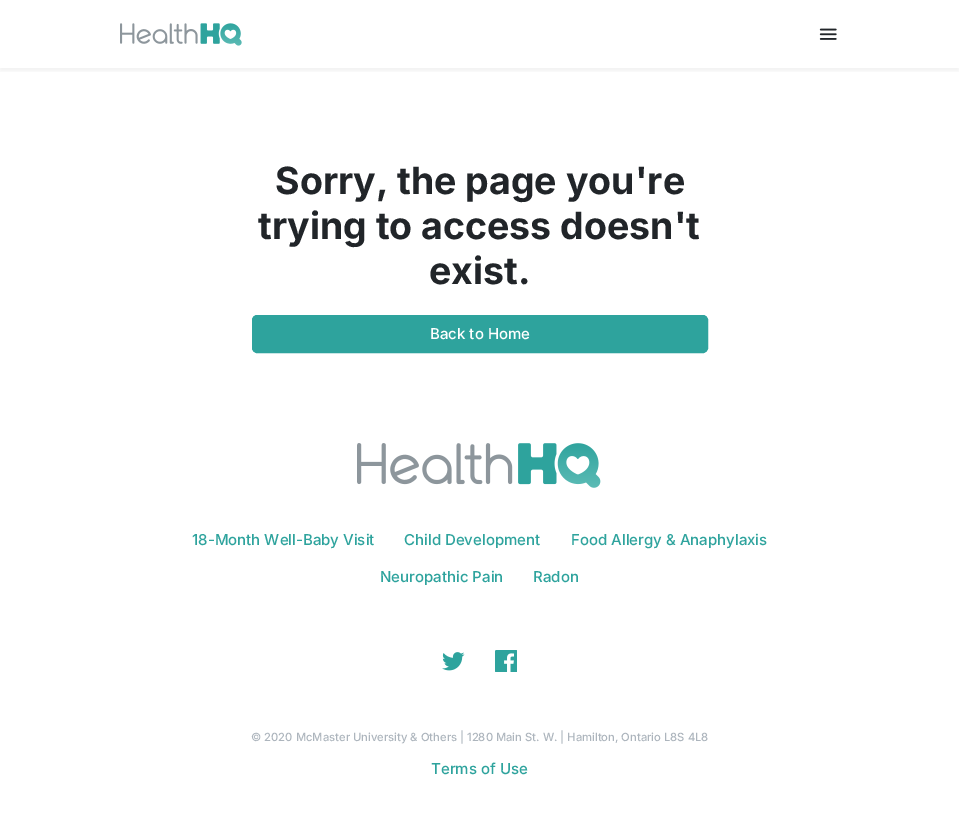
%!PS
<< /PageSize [959 837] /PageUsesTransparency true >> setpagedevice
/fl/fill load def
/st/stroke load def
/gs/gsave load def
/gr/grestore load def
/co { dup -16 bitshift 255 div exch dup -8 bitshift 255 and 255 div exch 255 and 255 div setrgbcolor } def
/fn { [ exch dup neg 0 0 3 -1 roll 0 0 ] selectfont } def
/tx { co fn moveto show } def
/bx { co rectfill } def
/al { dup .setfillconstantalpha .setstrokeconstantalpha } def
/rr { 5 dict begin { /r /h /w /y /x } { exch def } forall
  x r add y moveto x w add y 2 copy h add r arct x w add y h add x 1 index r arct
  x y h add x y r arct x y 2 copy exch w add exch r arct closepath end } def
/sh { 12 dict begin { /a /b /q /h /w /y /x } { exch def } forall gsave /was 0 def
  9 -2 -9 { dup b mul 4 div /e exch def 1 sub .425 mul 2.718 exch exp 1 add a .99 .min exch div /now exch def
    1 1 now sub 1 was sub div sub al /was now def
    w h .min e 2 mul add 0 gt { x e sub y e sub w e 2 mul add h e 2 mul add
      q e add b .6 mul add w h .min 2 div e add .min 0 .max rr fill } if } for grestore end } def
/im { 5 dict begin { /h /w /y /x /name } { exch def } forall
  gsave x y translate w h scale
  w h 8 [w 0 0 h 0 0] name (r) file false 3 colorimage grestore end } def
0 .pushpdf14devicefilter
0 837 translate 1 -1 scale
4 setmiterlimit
0 0 959 837 16#FFFFFF bx
gs
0 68 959 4 rectclip
16#000000 co
0 3 959 68 0 2.5 .05 sh
gr
(media/1.raw) 120 23 122 23 im
(media/2.raw) 819 28 18 12 im
16#2EA39D co
252.5 315.5 455 37 4.5 rr gs fl gr
st
(media/3.raw) 357 443 244 45 im
(media/4.raw) 442 652 23 19 im
(media/5.raw) 495 650 22 22 im
(Sorry, the page you're) 275 194 /Inter-Bold 37.5 16#212529 tx
(trying to access doesn't) 258 239 /Inter-Bold 37.5 16#212529 tx
(exist.) 429 284 /Inter-Bold 37.5 16#212529 tx
(Back to Home) 430 339 /Inter-Medium 15 16#FFFFFF tx
(18-Month Well-Baby Visit) 192 545 /Inter-Medium 15 16#2EA39D tx
(Child Development) 404 545 /Inter-Medium 15 16#2EA39D tx
(Food Allergy & Anaphylaxis) 571 545 /Inter-Medium 15 16#2EA39D tx
(Neuropathic Pain) 380 582 /Inter-Medium 15 16#2EA39D tx
(Radon) 533 582 /Inter-Medium 15 16#2EA39D tx
(© 2020 McMaster University & Others | 1280 Main St. W. | Hamilton, Ontario L8S 4L8) 251 741 /Inter-Medium 11.25 16#ADB5BD tx
(Terms of Use) 431 774 /Inter-Medium 15 16#2EA39D tx
.poppdf14devicefilter showpage
